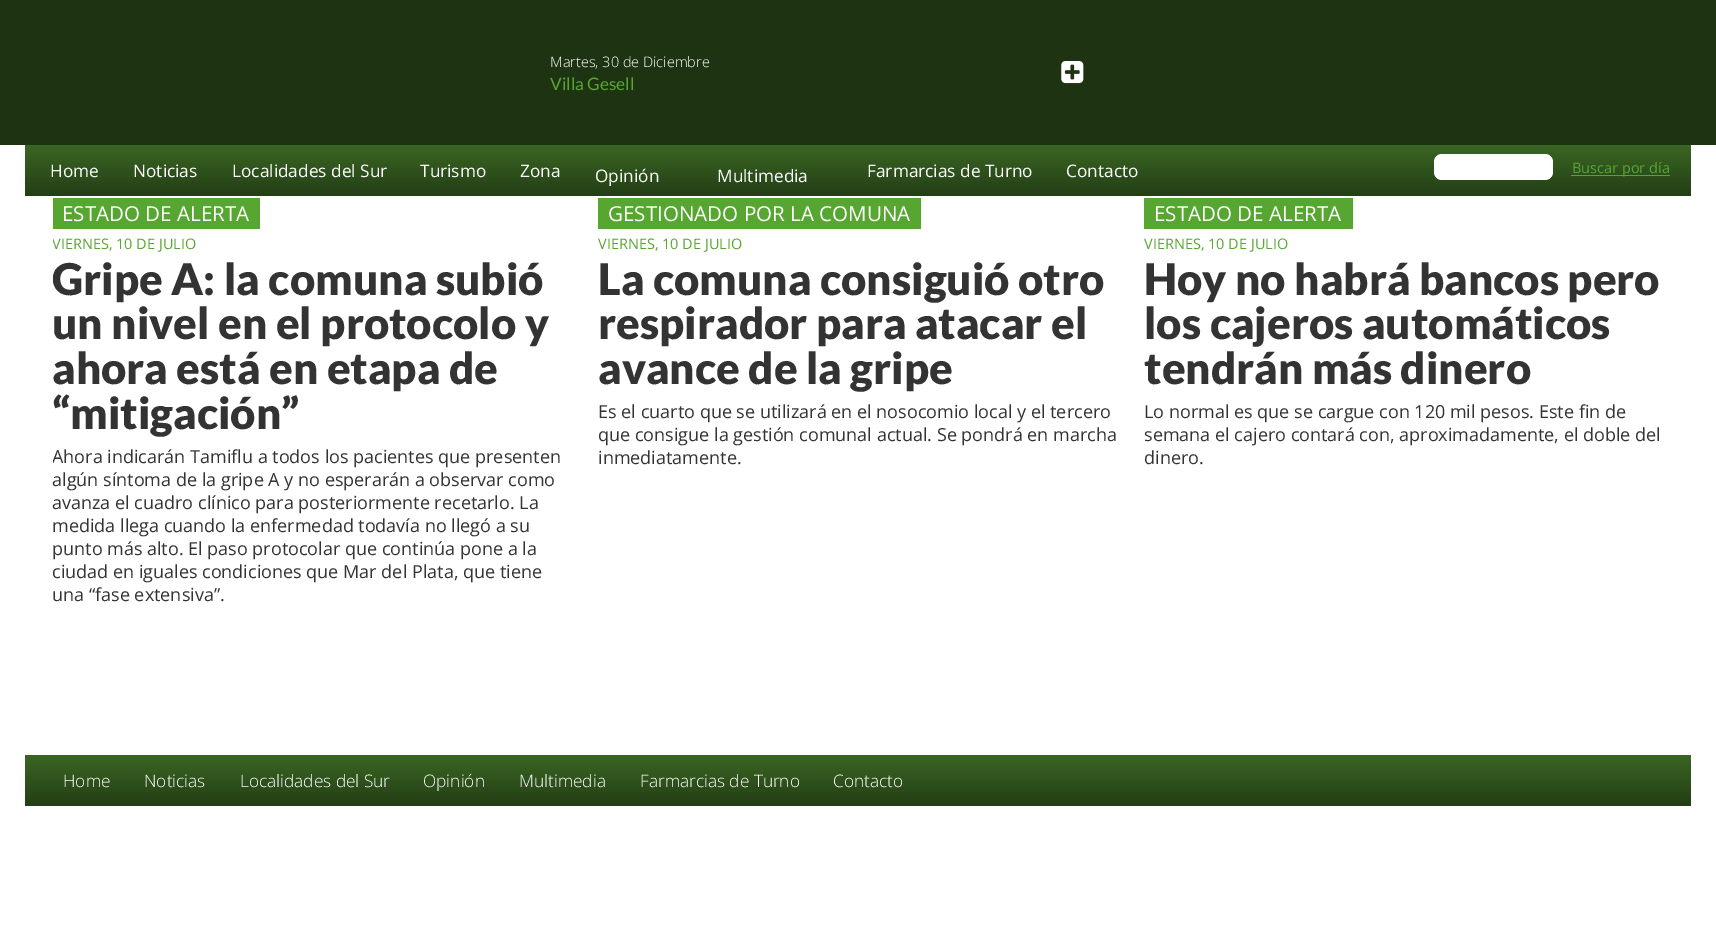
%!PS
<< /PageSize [1716 933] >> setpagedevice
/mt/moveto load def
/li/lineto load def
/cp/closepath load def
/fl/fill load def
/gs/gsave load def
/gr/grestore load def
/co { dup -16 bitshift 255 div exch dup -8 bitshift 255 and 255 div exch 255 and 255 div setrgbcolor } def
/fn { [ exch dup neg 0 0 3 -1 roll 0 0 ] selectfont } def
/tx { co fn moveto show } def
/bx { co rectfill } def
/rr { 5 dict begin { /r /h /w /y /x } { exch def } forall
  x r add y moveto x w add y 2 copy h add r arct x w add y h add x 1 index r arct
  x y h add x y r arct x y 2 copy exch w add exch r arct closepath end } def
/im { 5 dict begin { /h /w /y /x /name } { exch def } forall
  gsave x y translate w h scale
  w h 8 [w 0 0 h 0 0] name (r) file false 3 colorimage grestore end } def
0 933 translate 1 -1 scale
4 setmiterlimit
0 0 1716 933 16#FFFFFF bx
0 0 1716 145 16#1D3311 bx
(media/1.raw) 1061 61 23 23 im
gs 25 145 mt 1691 145 li 1691 196 li 25 196 li cp clip newpath
<< /ShadingType 2 /ColorSpace /DeviceRGB /Coords [858 196 858 145] /Extend [true true] /Function << /FunctionType 2 /Domain [0 1] /C0 [.137 .243 .082] /C1 [.227 .4 .137] /N 1 >> >> shfill gr
16#FFFFFF co
1434 154 119 26 8 rr fl
1571 175 99 1 16#5AA133 bx
53 198 207 31 16#58A632 bx
598 198 323 31 16#58A632 bx
1144 198 209 31 16#58A632 bx
gs 25 755 mt 1691 755 li 1691 806 li 25 806 li cp clip newpath
<< /ShadingType 2 /ColorSpace /DeviceRGB /Coords [858 806 858 755] /Extend [true true] /Function << /FunctionType 2 /Domain [0 1] /C0 [.137 .243 .082] /C1 [.227 .4 .137] /N 1 >> >> shfill gr
(Martes, 30 de Diciembre) 550 67 /OpenSans-Light 14.5 16#FFFFFF tx
(Villa Gesell) 550 90 /Lato-Regular 17.25 16#58A632 tx
(Home) 50 177 /OpenSans-Regular 17.25 16#FFFFFF tx
(Noticias) 133 177 /OpenSans-Regular 17.25 16#FFFFFF tx
(Localidades del Sur) 232 177 /OpenSans-Regular 17.25 16#FFFFFF tx
(Turismo) 420 177 /OpenSans-Regular 17.25 16#FFFFFF tx
(Zona) 520 177 /OpenSans-Regular 17.25 16#FFFFFF tx
(Opinión) 595 182 /OpenSans-Regular 17.25 16#FFFFFF tx
(Multimedia) 717 182 /OpenSans-Regular 17.25 16#FFFFFF tx
(Farmarcias de Turno) 867 177 /OpenSans-Regular 17.25 16#FFFFFF tx
(Contacto) 1066 177 /OpenSans-Regular 17.25 16#FFFFFF tx
(Buscar por día) 1572 173 /OpenSans-Regular 14.5 16#58A632 tx
(ESTADO DE ALERTA) 62 221 /OpenSans-Regular 20.6 16#FFFFFF tx
gs
53 198 1611 447 rectclip
(VIERNES, 10 DE JULIO) 52 249 /OpenSans-Regular 14.5 16#58A632 tx
(Gripe A: la comuna subió) 52 295 /Lato-Black 43.75 16#333333 tx
gr
(un nivel en el protocolo y) 52 339 /Lato-Black 43.75 16#333333 tx
(ahora está en etapa de) 52 384 /Lato-Black 43.75 16#333333 tx
(“mitigación”) 52 429 /Lato-Black 43.75 16#333333 tx
gs
53 198 1611 447 rectclip
(Ahora indicarán Tamiflu a todos los pacientes que presenten) 52 463 /OpenSans-Regular 18 16#333333 tx
gr
(algún síntoma de la gripe A y no esperarán a observar como) 52 486 /OpenSans-Regular 18 16#333333 tx
(avanza el cuadro clínico para posteriormente recetarlo. La) 52 509 /OpenSans-Regular 18 16#333333 tx
(medida llega cuando la enfermedad todavía no llegó a su) 52 532 /OpenSans-Regular 18 16#333333 tx
(punto más alto. El paso protocolar que continúa pone a la) 52 555 /OpenSans-Regular 18 16#333333 tx
(ciudad en iguales condiciones que Mar del Plata, que tiene) 52 578 /OpenSans-Regular 18 16#333333 tx
(una “fase extensiva”.) 52 601 /OpenSans-Regular 18 16#333333 tx
(GESTIONADO POR LA COMUNA) 608 221 /OpenSans-Regular 20.6 16#FFFFFF tx
(VIERNES, 10 DE JULIO) 598 249 /OpenSans-Regular 14.5 16#58A632 tx
(La comuna consiguió otro) 598 295 /Lato-Black 43.75 16#333333 tx
(respirador para atacar el) 598 339 /Lato-Black 43.75 16#333333 tx
(avance de la gripe) 598 384 /Lato-Black 43.75 16#333333 tx
(Es el cuarto que se utilizará en el nosocomio local y el tercero) 598 418 /OpenSans-Regular 18 16#333333 tx
(que consigue la gestión comunal actual. Se pondrá en marcha) 598 441 /OpenSans-Regular 18 16#333333 tx
(inmediatamente.) 598 464 /OpenSans-Regular 18 16#333333 tx
(ESTADO DE ALERTA) 1154 221 /OpenSans-Regular 20.6 16#FFFFFF tx
(VIERNES, 10 DE JULIO) 1144 249 /OpenSans-Regular 14.5 16#58A632 tx
(Hoy no habrá bancos pero) 1144 295 /Lato-Black 43.75 16#333333 tx
(los cajeros automáticos) 1144 339 /Lato-Black 43.75 16#333333 tx
(tendrán más dinero) 1144 384 /Lato-Black 43.75 16#333333 tx
(Lo normal es que se cargue con 120 mil pesos. Este fin de) 1144 418 /OpenSans-Regular 18 16#333333 tx
(semana el cajero contará con, aproximadamente, el doble del) 1144 441 /OpenSans-Regular 18 16#333333 tx
(dinero.) 1144 464 /OpenSans-Regular 18 16#333333 tx
(Home) 63 787 /OpenSans-Light 17.25 16#FFFFFF tx
(Noticias) 144 787 /OpenSans-Light 17.25 16#FFFFFF tx
(Localidades del Sur) 240 787 /OpenSans-Light 17.25 16#FFFFFF tx
(Opinión) 423 787 /OpenSans-Light 17.25 16#FFFFFF tx
(Multimedia) 519 787 /OpenSans-Light 17.25 16#FFFFFF tx
(Farmarcias de Turno) 640 787 /OpenSans-Light 17.25 16#FFFFFF tx
(Contacto) 833 787 /OpenSans-Light 17.25 16#FFFFFF tx
showpage
